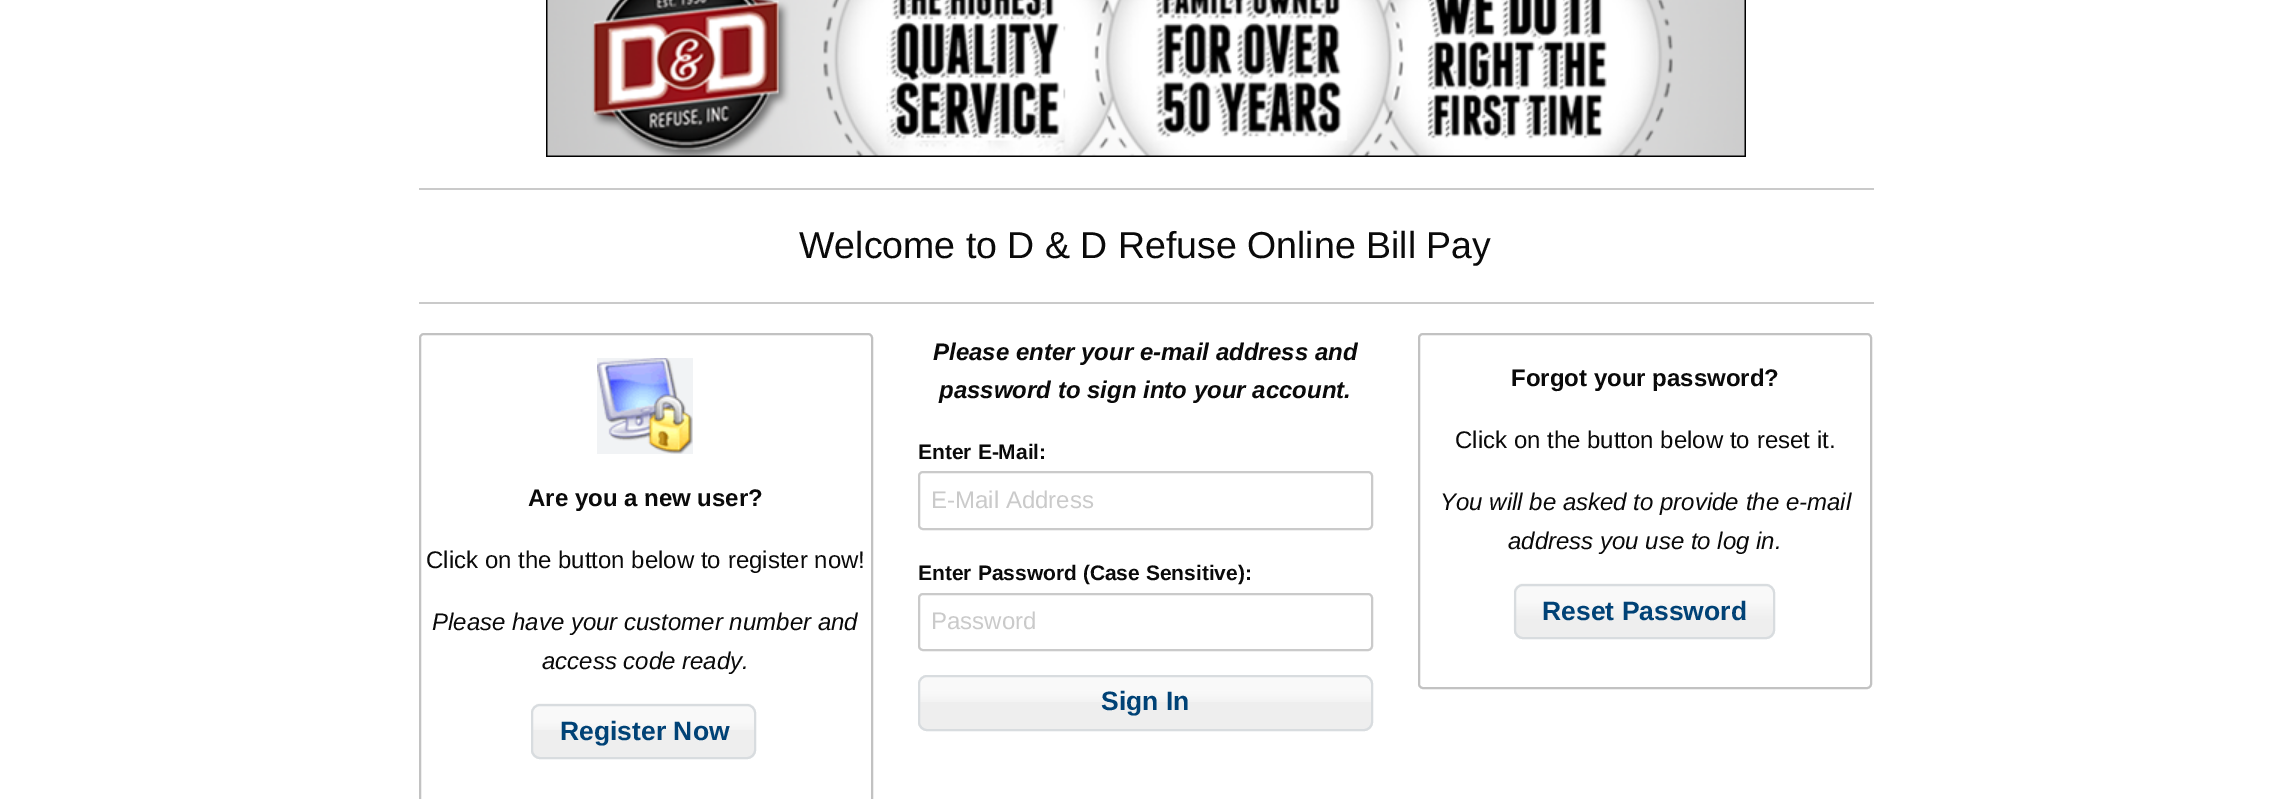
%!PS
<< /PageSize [2290 799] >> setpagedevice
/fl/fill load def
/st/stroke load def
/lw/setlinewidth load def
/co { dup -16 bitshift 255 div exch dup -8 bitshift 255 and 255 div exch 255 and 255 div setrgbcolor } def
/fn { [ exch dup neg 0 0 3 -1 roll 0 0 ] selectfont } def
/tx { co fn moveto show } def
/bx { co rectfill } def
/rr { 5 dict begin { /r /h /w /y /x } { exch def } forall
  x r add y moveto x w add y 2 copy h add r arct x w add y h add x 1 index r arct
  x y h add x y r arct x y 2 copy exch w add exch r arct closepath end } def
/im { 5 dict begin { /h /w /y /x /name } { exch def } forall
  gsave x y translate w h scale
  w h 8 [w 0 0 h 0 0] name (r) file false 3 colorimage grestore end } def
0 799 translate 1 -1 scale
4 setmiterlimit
0 0 2290 799 16#FFFFFF bx
(media/1.raw) 546 0 1200 157 im
419 188 1455 2 16#CACACA bx
419 302 1455 2 16#CACACA bx
16#C2C2C2 co
2 lw
420 334 452 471 4 rr st
(media/2.raw) 597 358 96 96 im
16#EEEEEE co
531 704 225 55 9 rr fl
(media/3.raw) 531 703 225 27 im
16#D8DCDF co
532 705 223 53 8 rr st
16#CACACA co
919 472 453 57 4 rr st
919 594 453 56 4 rr st
16#EEEEEE co
918 675 455 56 9 rr fl
(media/4.raw) 918 675 454 27 im
16#D8DCDF co
919 676 453 54 8 rr st
16#C2C2C2 co
1419 334 452 354 4 rr st
16#EEEEEE co
1514 584 261 55 9 rr fl
(media/5.raw) 1513 583 261 52 im
16#D8DCDF co
1515 585 259 53 8 rr st
(Welcome to D & D Refuse Online Bill Pay) 799 258 /LiberationSans-Regular 37.5 16#0A0A0A tx
(Are you a new user?) 528 506 /LiberationSans-Bold 24 16#0A0A0A tx
(Click on the button below to register now!) 426 568 /LiberationSans-Regular 24 16#0A0A0A tx
(Please have your customer number and) 432 630 /LiberationSans-Italic 24 16#0A0A0A tx
(access code ready.) 542 669 /LiberationSans-Italic 24 16#0A0A0A tx
(Register Now) 560 740 /LiberationSans-Bold 26.5 16#004276 tx
(Please enter your e-mail address and) 933 360 /LiberationSans-BoldItalic 24 16#0A0A0A tx
(password to sign into your account.) 939 398 /LiberationSans-BoldItalic 24 16#0A0A0A tx
(Enter E-Mail:) 918 459 /LiberationSans-Bold 21 16#0A0A0A tx
(E-Mail Address) 931 508 /LiberationSans-Regular 24 16#CACACA tx
(Enter Password \(Case Sensitive\):) 918 580 /LiberationSans-Bold 21 16#0A0A0A tx
(Password) 931 629 /LiberationSans-Regular 24 16#CACACA tx
(Sign In) 1101 710 /LiberationSans-Bold 26.5 16#004276 tx
(Forgot your password?) 1511 386 /LiberationSans-Bold 24 16#0A0A0A tx
(Click on the button below to reset it.) 1455 448 /LiberationSans-Regular 24 16#0A0A0A tx
(You will be asked to provide the e-mail) 1440 510 /LiberationSans-Italic 24 16#0A0A0A tx
(address you use to log in.) 1508 549 /LiberationSans-Italic 24 16#0A0A0A tx
(Reset Password) 1542 620 /LiberationSans-Bold 26.5 16#004276 tx
showpage
